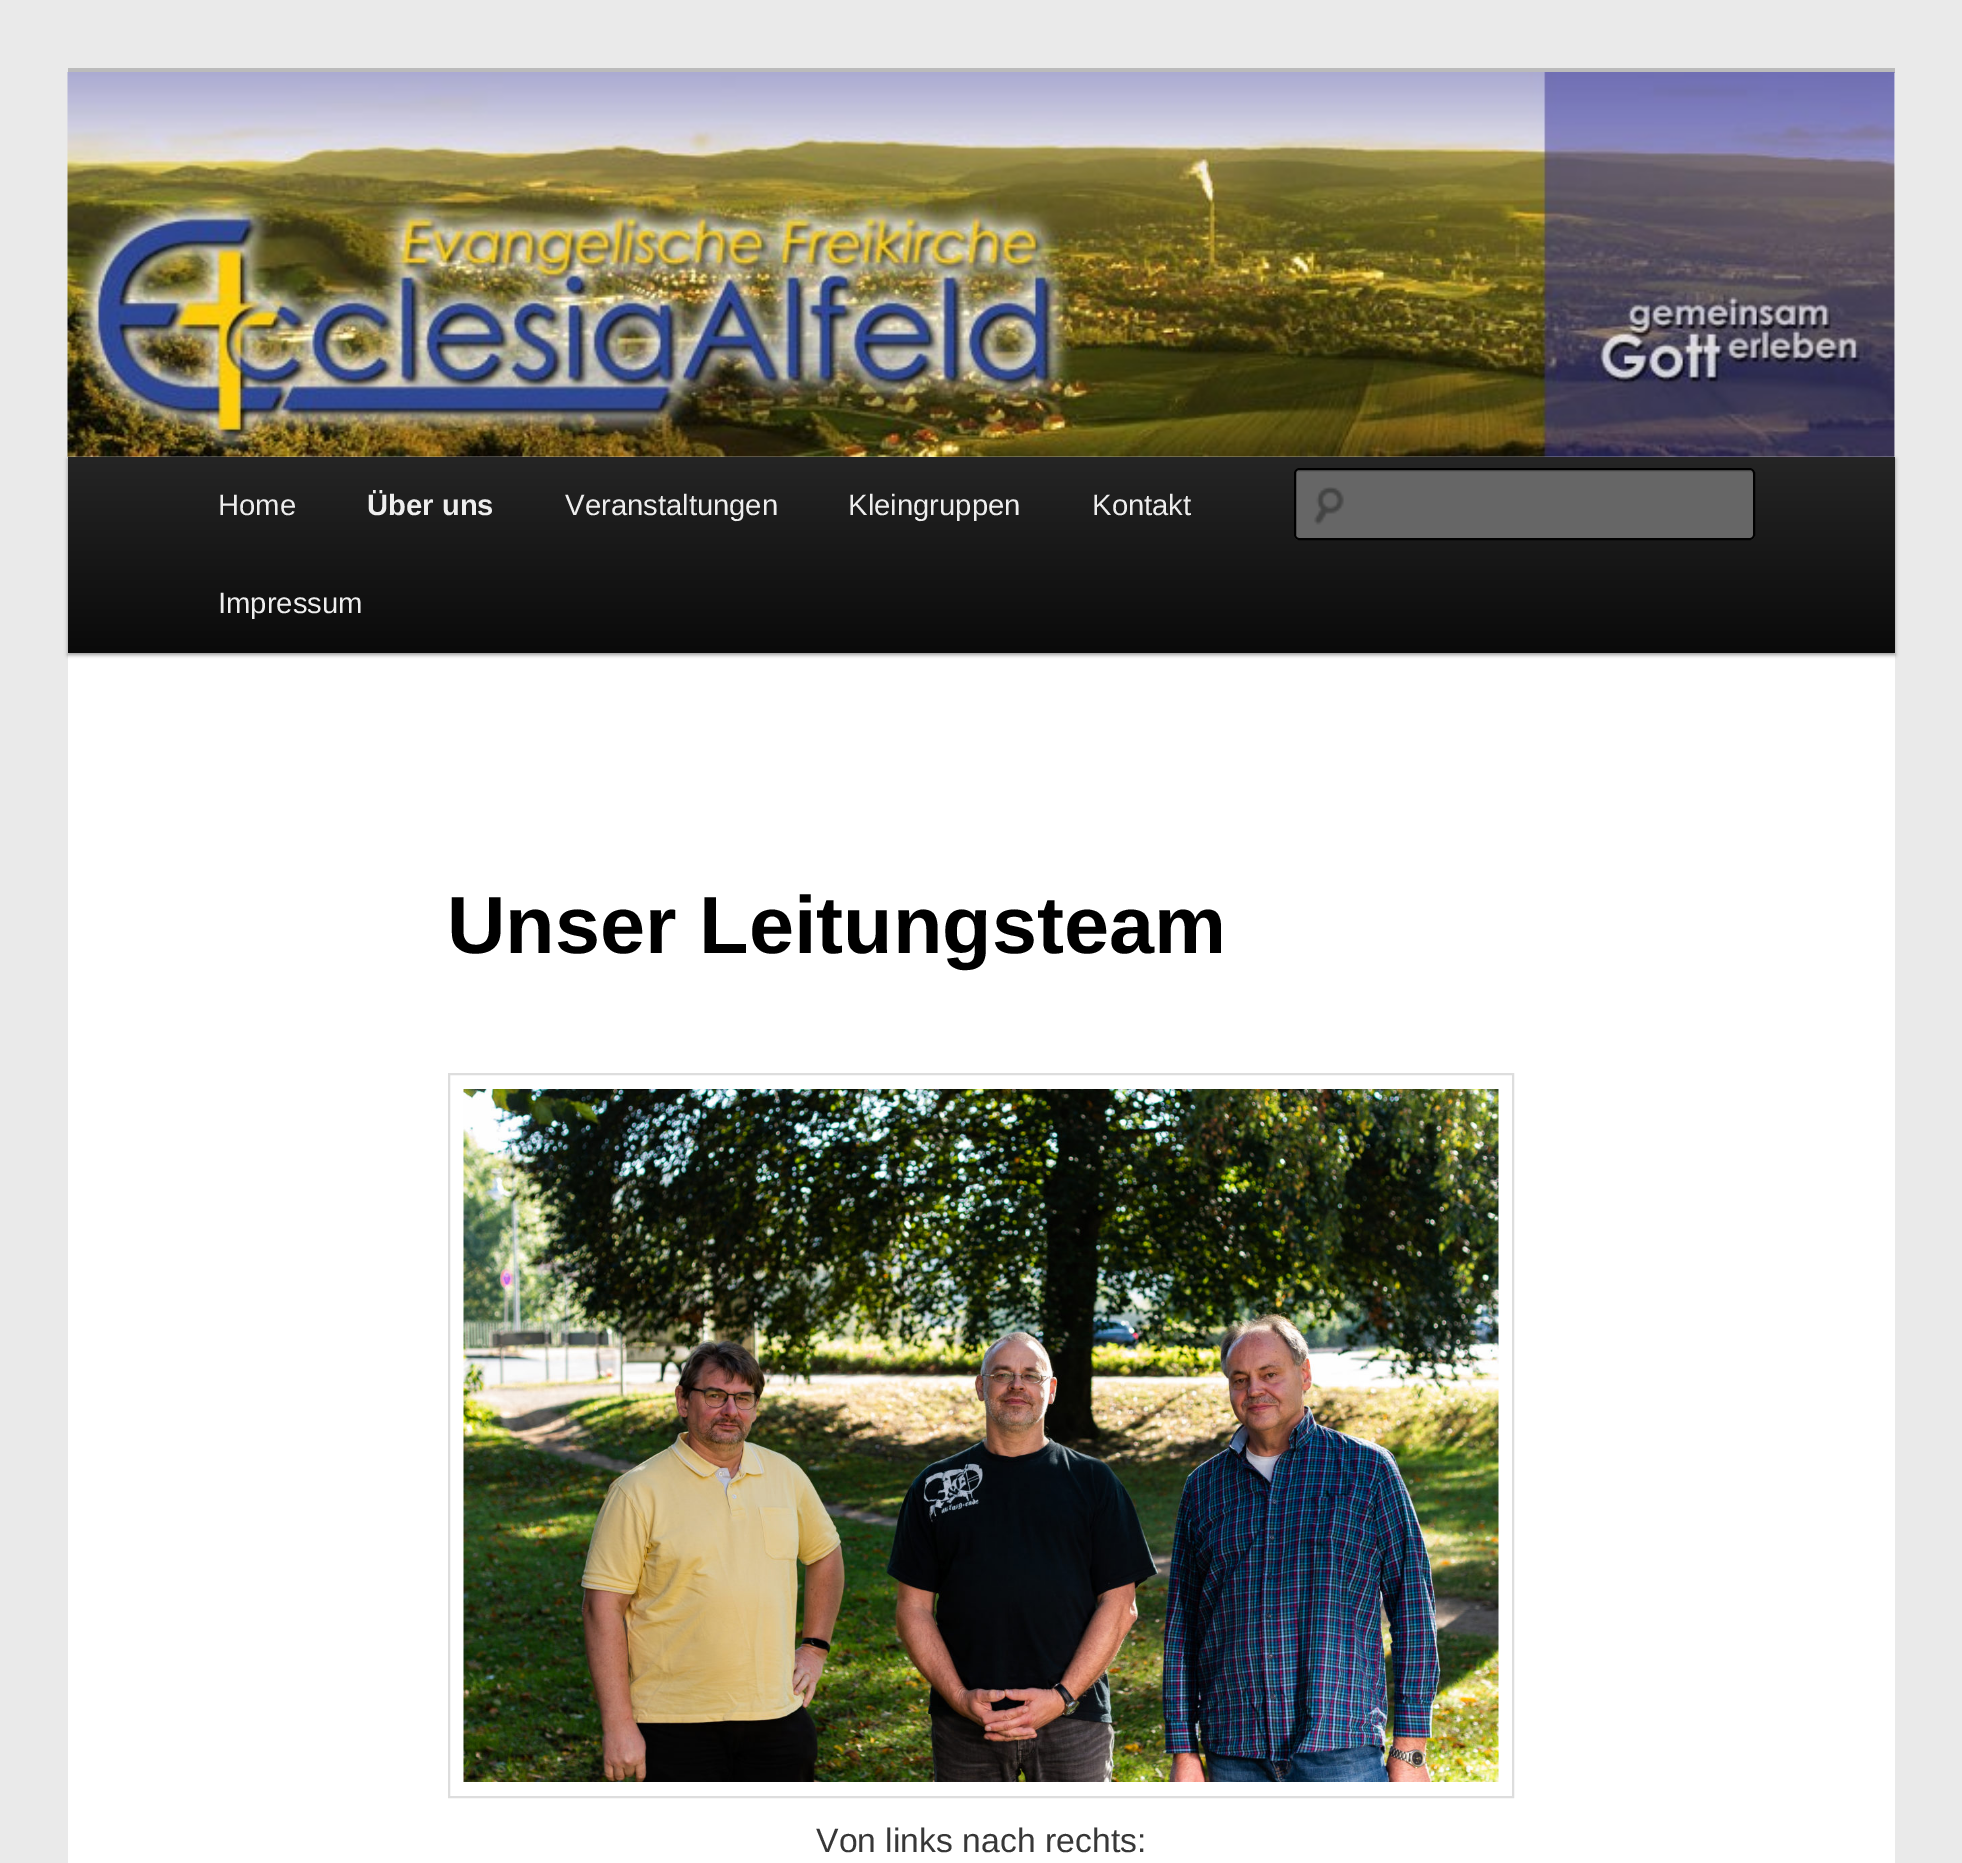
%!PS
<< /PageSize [1962 1863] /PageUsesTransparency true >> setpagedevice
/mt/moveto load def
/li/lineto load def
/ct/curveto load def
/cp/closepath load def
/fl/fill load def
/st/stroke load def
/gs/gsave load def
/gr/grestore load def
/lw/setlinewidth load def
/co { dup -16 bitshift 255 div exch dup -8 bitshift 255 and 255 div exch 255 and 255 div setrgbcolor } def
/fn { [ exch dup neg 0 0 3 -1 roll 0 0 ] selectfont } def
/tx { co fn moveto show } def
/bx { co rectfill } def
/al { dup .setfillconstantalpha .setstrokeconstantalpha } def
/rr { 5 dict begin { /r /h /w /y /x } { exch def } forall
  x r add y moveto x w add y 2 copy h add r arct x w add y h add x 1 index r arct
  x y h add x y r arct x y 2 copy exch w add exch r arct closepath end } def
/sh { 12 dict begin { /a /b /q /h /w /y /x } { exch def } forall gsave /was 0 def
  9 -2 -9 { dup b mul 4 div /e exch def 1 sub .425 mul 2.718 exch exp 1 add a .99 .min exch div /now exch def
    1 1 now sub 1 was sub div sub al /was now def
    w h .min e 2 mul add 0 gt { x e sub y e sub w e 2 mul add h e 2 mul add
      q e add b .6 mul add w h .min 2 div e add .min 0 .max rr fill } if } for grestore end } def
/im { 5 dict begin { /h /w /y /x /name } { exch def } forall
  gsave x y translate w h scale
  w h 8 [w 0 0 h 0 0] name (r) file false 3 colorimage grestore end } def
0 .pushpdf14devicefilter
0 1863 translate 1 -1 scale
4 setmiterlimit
0 0 1962 1863 16#EAEAEA bx
68 73 1827 1790 16#FFFFFF bx
68 68 1827 5 16#BBBBBB bx
16#000000 co
68 459 1827 196 0 2 .4 sh
(media/1.raw) 67 72 1828 385 im
gs 68 457 mt 1895 457 li 1895 653 li 68 653 li cp clip newpath
<< /ShadingType 2 /ColorSpace /DeviceRGB /Coords [981 457 981 653] /Extend [true true] /Function << /FunctionType 2 /Domain [0 1] /C0 [.145 .145 .145] /C1 [.039 .039 .039] /N 1 >> >> shfill gr
16#666666 co
1294 468 461 72 5 rr fl
(media/2.raw) 1314 487 30 38 im
16#5C5C5C co
1298 472 mt 1750 472 li 1752 472 1753 474 1753 475 ct 1753 472 li 1753 471 1752 470 1751 470 ct 1298 470 li 1297 470 1296 471 1296 472 ct 1296 475 li 1296 474 1297 472 1298 472 ct cp fl
16#000000 co
2 lw
1295 469 459 70 4 rr st
16#DDDDDD co
449 1074 1064 723 rectstroke
(media/3.raw) 463 1089 1036 693 im
(Home) 218 515 /LiberationSans-Regular 29.25 16#EEEEEE tx
(Über uns) 367 515 /LiberationSans-Bold 29.25 16#EEEEEE tx
(Veranstaltungen) 565 515 /LiberationSans-Regular 29.25 16#EEEEEE tx
(Kleingruppen) 848 515 /LiberationSans-Regular 29.25 16#EEEEEE tx
(Kontakt) 1092 515 /LiberationSans-Regular 29.25 16#EEEEEE tx
(Impressum) 218 613 /LiberationSans-Regular 29.25 16#EEEEEE tx
(Unser Leitungsteam) 447 953 /LiberationSans-Bold 81 16#000000 tx
(Von links nach rechts:) 816 1852 /LiberationSans-Regular 33.75 16#373737 tx
.poppdf14devicefilter showpage
